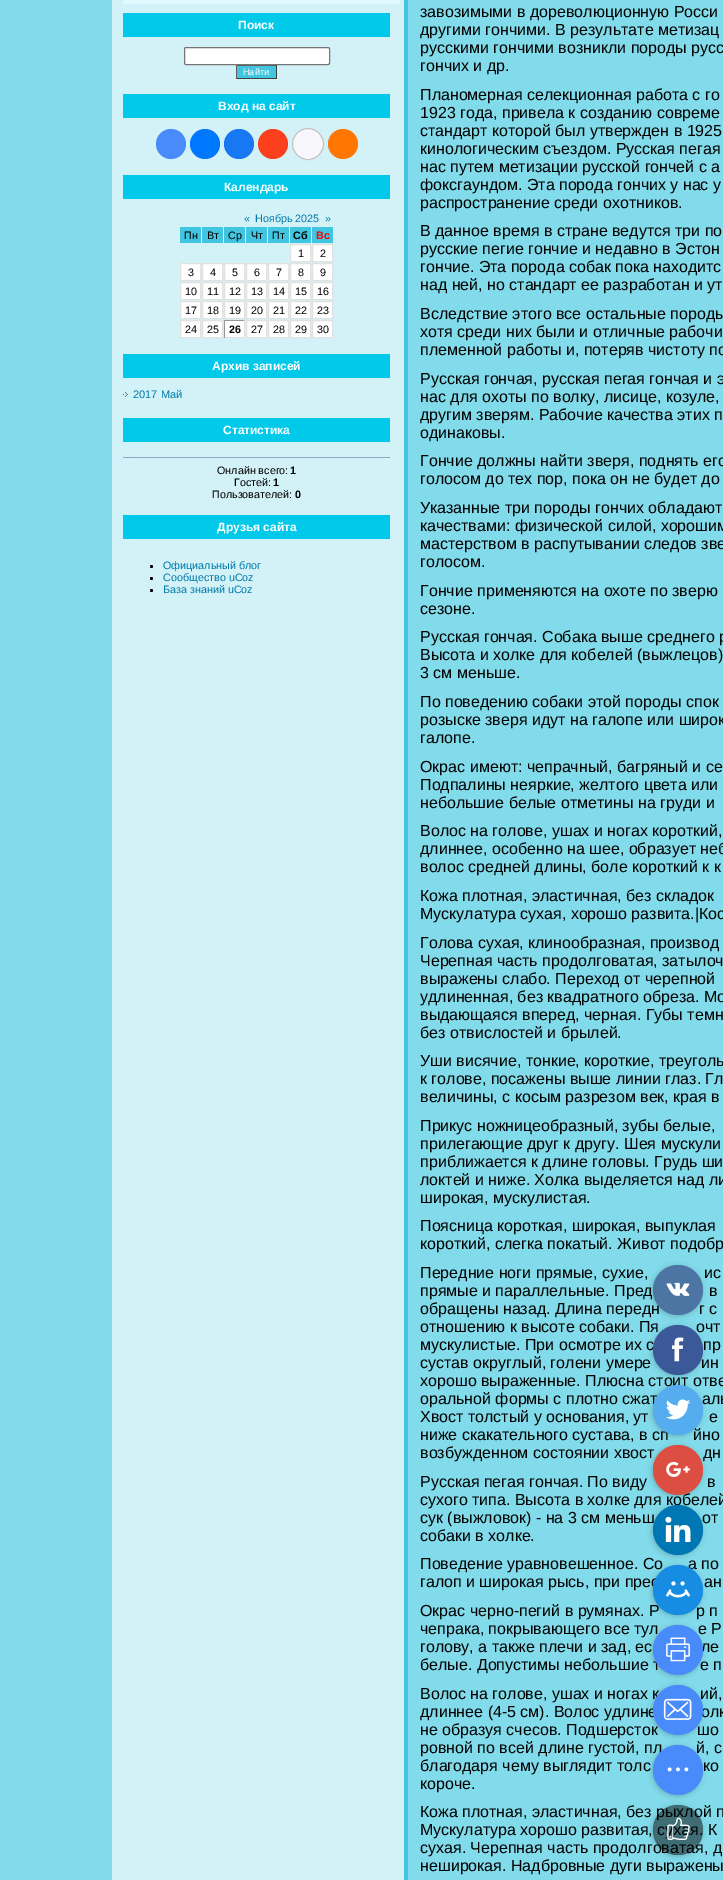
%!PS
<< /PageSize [723 1880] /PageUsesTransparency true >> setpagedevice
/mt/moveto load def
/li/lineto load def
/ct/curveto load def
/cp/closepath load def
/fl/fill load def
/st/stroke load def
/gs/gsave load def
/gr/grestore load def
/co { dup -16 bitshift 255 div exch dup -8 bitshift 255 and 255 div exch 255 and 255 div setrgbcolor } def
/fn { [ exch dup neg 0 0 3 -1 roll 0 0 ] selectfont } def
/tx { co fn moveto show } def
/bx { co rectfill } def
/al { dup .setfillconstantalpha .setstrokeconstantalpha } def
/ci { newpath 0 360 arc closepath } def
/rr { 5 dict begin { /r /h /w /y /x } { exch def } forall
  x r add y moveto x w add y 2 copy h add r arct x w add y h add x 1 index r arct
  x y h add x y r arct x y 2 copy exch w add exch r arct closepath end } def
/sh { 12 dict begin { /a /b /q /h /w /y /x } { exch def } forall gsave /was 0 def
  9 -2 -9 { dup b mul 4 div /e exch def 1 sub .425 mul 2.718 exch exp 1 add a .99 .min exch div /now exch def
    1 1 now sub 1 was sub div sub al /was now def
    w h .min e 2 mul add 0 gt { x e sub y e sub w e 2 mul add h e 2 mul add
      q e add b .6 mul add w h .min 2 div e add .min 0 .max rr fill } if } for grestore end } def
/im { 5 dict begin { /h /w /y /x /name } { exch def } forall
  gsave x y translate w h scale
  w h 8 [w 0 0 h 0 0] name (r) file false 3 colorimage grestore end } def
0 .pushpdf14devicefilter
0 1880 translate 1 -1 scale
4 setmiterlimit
0 0 723 1880 16#81DBEA bx
(media/1.raw) 112 0 296 1880 im
123 0 277 4 16#E1F9FE bx
123 13 267 24 16#00C9EA bx
16#FFFFFF co
184.5 47.5 145 17 1.5 rr gs fl gr
16#767676 co
st
237 66 39 12 16#42C5E1 bx
236 65 41 1 16#615E58 bx
276 65 1 14 16#413F3B bx
236 78 41 1 16#413F3B bx
236 65 1 14 16#615E58 bx
123 94 267 24 16#00C9EA bx
16#498BFA co
171 144 15 ci fl
16#0077FF co
205 144 15 ci fl
16#1877F2 co
239 144 15 ci fl
16#FC3F1D co
273 144 15 ci fl
16#F8F8FC co
308 144 15.5 ci gs fl gr
16#C4C4C4 co
st
16#FF7700 co
343 144 15 ci fl
123 175 267 24 16#00C9EA bx
180 227 21 16 16#42C5E1 bx
202 227 21 16 16#42C5E1 bx
224 227 21 16 16#42C5E1 bx
246 227 21 16 16#42C5E1 bx
268 227 21 16 16#42C5E1 bx
290 227 21 16 16#42C5E1 bx
312 227 21 16 16#42C5E1 bx
16#FFFFFF co
290.5 244.5 mt 310.5 244.5 li 310.5 261.5 li 290.5 261.5 li cp gs fl gr
16#E1E1E1 co
st
16#FFFFFF co
312.5 244.5 mt 332.5 244.5 li 332.5 261.5 li 312.5 261.5 li cp gs fl gr
16#E1E1E1 co
st
16#FFFFFF co
180.5 263.5 mt 200.5 263.5 li 200.5 280.5 li 180.5 280.5 li cp gs fl gr
16#E1E1E1 co
st
16#FFFFFF co
202.5 263.5 mt 222.5 263.5 li 222.5 280.5 li 202.5 280.5 li cp gs fl gr
16#E1E1E1 co
st
16#FFFFFF co
224.5 263.5 mt 244.5 263.5 li 244.5 280.5 li 224.5 280.5 li cp gs fl gr
16#E1E1E1 co
st
16#FFFFFF co
246.5 263.5 mt 266.5 263.5 li 266.5 280.5 li 246.5 280.5 li cp gs fl gr
16#E1E1E1 co
st
16#FFFFFF co
268.5 263.5 mt 288.5 263.5 li 288.5 280.5 li 268.5 280.5 li cp gs fl gr
16#E1E1E1 co
st
16#FFFFFF co
290.5 263.5 mt 310.5 263.5 li 310.5 280.5 li 290.5 280.5 li cp gs fl gr
16#E1E1E1 co
st
16#FFFFFF co
312.5 263.5 mt 332.5 263.5 li 332.5 280.5 li 312.5 280.5 li cp gs fl gr
16#E1E1E1 co
st
16#FFFFFF co
180.5 282.5 mt 200.5 282.5 li 200.5 299.5 li 180.5 299.5 li cp gs fl gr
16#E1E1E1 co
st
16#FFFFFF co
202.5 282.5 mt 222.5 282.5 li 222.5 299.5 li 202.5 299.5 li cp gs fl gr
16#E1E1E1 co
st
16#FFFFFF co
224.5 282.5 mt 244.5 282.5 li 244.5 299.5 li 224.5 299.5 li cp gs fl gr
16#E1E1E1 co
st
16#FFFFFF co
246.5 282.5 mt 266.5 282.5 li 266.5 299.5 li 246.5 299.5 li cp gs fl gr
16#E1E1E1 co
st
16#FFFFFF co
268.5 282.5 mt 288.5 282.5 li 288.5 299.5 li 268.5 299.5 li cp gs fl gr
16#E1E1E1 co
st
16#FFFFFF co
290.5 282.5 mt 310.5 282.5 li 310.5 299.5 li 290.5 299.5 li cp gs fl gr
16#E1E1E1 co
st
16#FFFFFF co
312.5 282.5 mt 332.5 282.5 li 332.5 299.5 li 312.5 299.5 li cp gs fl gr
16#E1E1E1 co
st
16#FFFFFF co
180.5 301.5 mt 200.5 301.5 li 200.5 318.5 li 180.5 318.5 li cp gs fl gr
16#E1E1E1 co
st
16#FFFFFF co
202.5 301.5 mt 222.5 301.5 li 222.5 318.5 li 202.5 318.5 li cp gs fl gr
16#E1E1E1 co
st
16#FFFFFF co
224.5 301.5 mt 244.5 301.5 li 244.5 318.5 li 224.5 318.5 li cp gs fl gr
16#E1E1E1 co
st
16#FFFFFF co
246.5 301.5 mt 266.5 301.5 li 266.5 318.5 li 246.5 318.5 li cp gs fl gr
16#E1E1E1 co
st
16#FFFFFF co
268.5 301.5 mt 288.5 301.5 li 288.5 318.5 li 268.5 318.5 li cp gs fl gr
16#E1E1E1 co
st
16#FFFFFF co
290.5 301.5 mt 310.5 301.5 li 310.5 318.5 li 290.5 318.5 li cp gs fl gr
16#E1E1E1 co
st
16#FFFFFF co
312.5 301.5 mt 332.5 301.5 li 332.5 318.5 li 312.5 318.5 li cp gs fl gr
16#E1E1E1 co
st
16#FFFFFF co
180.5 320.5 mt 200.5 320.5 li 200.5 337.5 li 180.5 337.5 li cp gs fl gr
16#E1E1E1 co
st
16#FFFFFF co
202.5 320.5 mt 222.5 320.5 li 222.5 337.5 li 202.5 337.5 li cp gs fl gr
16#E1E1E1 co
st
225 321 19 16 16#FFFFFF bx
224 320 21 1 16#969696 bx
244 320 1 18 16#E1E1E1 bx
224 337 21 1 16#E1E1E1 bx
224 320 1 18 16#969696 bx
16#FFFFFF co
246.5 320.5 mt 266.5 320.5 li 266.5 337.5 li 246.5 337.5 li cp gs fl gr
16#E1E1E1 co
st
16#FFFFFF co
268.5 320.5 mt 288.5 320.5 li 288.5 337.5 li 268.5 337.5 li cp gs fl gr
16#E1E1E1 co
st
16#FFFFFF co
290.5 320.5 mt 310.5 320.5 li 310.5 337.5 li 290.5 337.5 li cp gs fl gr
16#E1E1E1 co
st
16#FFFFFF co
312.5 320.5 mt 332.5 320.5 li 332.5 337.5 li 312.5 337.5 li cp gs fl gr
16#E1E1E1 co
st
123 354 267 24 16#00C9EA bx
(media/2.raw) 123 392 5 5 im
123 418 267 24 16#00C9EA bx
123 457 267 1 16#8EA8C4 bx
123 515 267 24 16#00C9EA bx
16#000000 co
151.5 566.5 1.5 ci fl
151.5 578.5 1.5 ci fl
151.5 590.5 1.5 ci fl
652 1266 50 50 25 2.5 .2 sh
652 1326 50 50 25 2.5 .2 sh
652 1386 50 50 25 2.5 .2 sh
652 1446 50 50 25 2.5 .2 sh
652 1506 50 50 25 2.5 .2 sh
652 1566 50 50 25 2.5 .2 sh
652 1626 50 50 25 2.5 .2 sh
652 1686 50 50 25 2.5 .2 sh
652 1746 50 50 25 2.5 .2 sh
gs
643 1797 mt 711 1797 li 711 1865 li 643 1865 li cp 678 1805 mt 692 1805 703 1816 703 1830 ct 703 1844 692 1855 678 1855 ct 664 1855 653 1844 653 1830 ct 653 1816 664 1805 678 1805 ct cp eoclip newpath
652 1806 50 50 25 2.5 .2 sh
gr
(Поиск) 238 29 /LiberationSans-Bold 12 16#FFFFFF tx
(Найти) 243 75 /LiberationSans-Regular 9 16#FFFFFF tx
(Вход на сайт) 218 110 /LiberationSans-Bold 12 16#FFFFFF tx
(Календарь) 224 191 /LiberationSans-Bold 12 16#FFFFFF tx
(«) 244 222 /LiberationSans-Regular 10.75 16#007BAA tx
(Ноябрь 2025) 255 222 /LiberationSans-Regular 10.75 16#007BAA tx
(») 325 222 /LiberationSans-Regular 10.75 16#007BAA tx
(Пн) 184 239 /LiberationSans-Regular 10.75 16#000000 tx
(Вт) 207 239 /LiberationSans-Regular 10.75 16#000000 tx
(Ср) 228 239 /LiberationSans-Regular 10.75 16#000000 tx
(Чт) 251 239 /LiberationSans-Regular 10.75 16#000000 tx
(Пт) 272 239 /LiberationSans-Regular 10.75 16#000000 tx
(Сб) 293 239 /LiberationSans-Bold 10.75 16#000000 tx
(Вс) 316 239 /LiberationSans-Bold 10.75 16#FF0000 tx
(1) 298 257 /LiberationSans-Regular 10.75 16#000000 tx
(2) 320 257 /LiberationSans-Regular 10.75 16#000000 tx
(3) 188 276 /LiberationSans-Regular 10.75 16#000000 tx
(4) 210 276 /LiberationSans-Regular 10.75 16#000000 tx
(5) 232 276 /LiberationSans-Regular 10.75 16#000000 tx
(6) 254 276 /LiberationSans-Regular 10.75 16#000000 tx
(7) 276 276 /LiberationSans-Regular 10.75 16#000000 tx
(8) 298 276 /LiberationSans-Regular 10.75 16#000000 tx
(9) 320 276 /LiberationSans-Regular 10.75 16#000000 tx
(10) 185 295 /LiberationSans-Regular 10.75 16#000000 tx
(11) 207 295 /LiberationSans-Regular 10.75 16#000000 tx
(12) 229 295 /LiberationSans-Regular 10.75 16#000000 tx
(13) 251 295 /LiberationSans-Regular 10.75 16#000000 tx
(14) 273 295 /LiberationSans-Regular 10.75 16#000000 tx
(15) 295 295 /LiberationSans-Regular 10.75 16#000000 tx
(16) 317 295 /LiberationSans-Regular 10.75 16#000000 tx
(17) 185 314 /LiberationSans-Regular 10.75 16#000000 tx
(18) 207 314 /LiberationSans-Regular 10.75 16#000000 tx
(19) 229 314 /LiberationSans-Regular 10.75 16#000000 tx
(20) 251 314 /LiberationSans-Regular 10.75 16#000000 tx
(21) 273 314 /LiberationSans-Regular 10.75 16#000000 tx
(22) 295 314 /LiberationSans-Regular 10.75 16#000000 tx
(23) 317 314 /LiberationSans-Regular 10.75 16#000000 tx
(24) 185 333 /LiberationSans-Regular 10.75 16#000000 tx
(25) 207 333 /LiberationSans-Regular 10.75 16#000000 tx
(26) 229 333 /LiberationSans-Bold 10.75 16#000000 tx
(27) 251 333 /LiberationSans-Regular 10.75 16#000000 tx
(28) 273 333 /LiberationSans-Regular 10.75 16#000000 tx
(29) 295 333 /LiberationSans-Regular 10.75 16#000000 tx
(30) 317 333 /LiberationSans-Regular 10.75 16#000000 tx
(Архив записей) 212 370 /LiberationSans-Bold 12 16#FFFFFF tx
(2017 Май) 133 398 /LiberationSans-Regular 11 16#007BAA tx
(Статистика) 223 434 /LiberationSans-Bold 12 16#FFFFFF tx
(Онлайн всего:) 217 474 /LiberationSans-Regular 10.75 16#000000 tx
(1) 290 474 /LiberationSans-Bold 10.75 16#000000 tx
(Гостей:) 234 486 /LiberationSans-Regular 10.75 16#000000 tx
(1) 273 486 /LiberationSans-Bold 10.75 16#000000 tx
(Пользователей:) 212 498 /LiberationSans-Regular 10.75 16#000000 tx
(0) 295 498 /LiberationSans-Bold 10.75 16#000000 tx
(Друзья сайта) 217 531 /LiberationSans-Bold 12 16#FFFFFF tx
(Официальный блог) 163 569 /LiberationSans-Regular 10.75 16#007BAA tx
(Сообщество uCoz) 163 581 /LiberationSans-Regular 10.75 16#007BAA tx
(База знаний uCoz) 163 593 /LiberationSans-Regular 10.75 16#007BAA tx
(завозимыми в дореволюционную Росси) 420 17 /LiberationSans-Regular 16 16#000000 tx
(другими гончими. В результате метизац) 420 35 /LiberationSans-Regular 16 16#000000 tx
(русскими гончими возникли породы русс) 420 53 /LiberationSans-Regular 16 16#000000 tx
(гончих и др.) 420 71 /LiberationSans-Regular 16 16#000000 tx
(Планомерная селекционная работа с го) 420 100 /LiberationSans-Regular 16 16#000000 tx
(1923 года, привела к созданию совреме) 420 118 /LiberationSans-Regular 16 16#000000 tx
(стандарт которой был утвержден в 1925) 420 136 /LiberationSans-Regular 16 16#000000 tx
(кинологическим съездом. Русская пегая) 420 154 /LiberationSans-Regular 16 16#000000 tx
(нас путем метизации русской гончей с а) 420 172 /LiberationSans-Regular 16 16#000000 tx
(фоксгаундом. Эта порода гончих у нас у) 420 190 /LiberationSans-Regular 16 16#000000 tx
(распространение среди охотников.) 420 208 /LiberationSans-Regular 16 16#000000 tx
(В данное время в стране ведутся три по) 420 236 /LiberationSans-Regular 16 16#000000 tx
(русские пегие гончие и недавно в Эстон) 420 254 /LiberationSans-Regular 16 16#000000 tx
(гончие. Эта порода собак пока находитс) 420 272 /LiberationSans-Regular 16 16#000000 tx
(над ней, но стандарт ее разработан и ут) 420 290 /LiberationSans-Regular 16 16#000000 tx
(Вследствие этого все остальные породы) 420 319 /LiberationSans-Regular 16 16#000000 tx
(хотя среди них были и отличные рабочи) 420 337 /LiberationSans-Regular 16 16#000000 tx
(племенной работы и, потеряв чистоту по) 420 355 /LiberationSans-Regular 16 16#000000 tx
(Русская гончая, русская пегая гончая и э) 420 384 /LiberationSans-Regular 16 16#000000 tx
(нас для охоты по волку, лисице, козуле,) 420 402 /LiberationSans-Regular 16 16#000000 tx
(другим зверям. Рабочие качества этих п) 420 420 /LiberationSans-Regular 16 16#000000 tx
(одинаковы.) 420 438 /LiberationSans-Regular 16 16#000000 tx
(Гончие должны найти зверя, поднять его) 420 466 /LiberationSans-Regular 16 16#000000 tx
(голосом до тех пор, пока он не будет до) 420 484 /LiberationSans-Regular 16 16#000000 tx
(Указанные три породы гончих обладают) 420 513 /LiberationSans-Regular 16 16#000000 tx
(качествами: физической силой, хорошим) 420 531 /LiberationSans-Regular 16 16#000000 tx
(мастерством в распутывании следов зве) 420 549 /LiberationSans-Regular 16 16#000000 tx
(голосом.) 420 567 /LiberationSans-Regular 16 16#000000 tx
(Гончие применяются на охоте по зверю) 420 596 /LiberationSans-Regular 16 16#000000 tx
(сезоне.) 420 614 /LiberationSans-Regular 16 16#000000 tx
(Русская гончая. Собака выше среднего р) 420 642 /LiberationSans-Regular 16 16#000000 tx
(Высота и холке для кобелей \(выжлецов\)) 420 660 /LiberationSans-Regular 16 16#000000 tx
(3 см меньше.) 420 678 /LiberationSans-Regular 16 16#000000 tx
(По поведению собаки этой породы спок) 420 707 /LiberationSans-Regular 16 16#000000 tx
(розыске зверя идут на галопе или широк) 420 725 /LiberationSans-Regular 16 16#000000 tx
(галопе.) 420 743 /LiberationSans-Regular 16 16#000000 tx
(Окрас имеют: чепрачный, багряный и се) 420 772 /LiberationSans-Regular 16 16#000000 tx
(Подпалины неяркие, желтого цвета или) 420 790 /LiberationSans-Regular 16 16#000000 tx
(небольшие белые отметины на груди и) 420 808 /LiberationSans-Regular 16 16#000000 tx
(Волос на голове, ушах и ногах короткий,) 420 836 /LiberationSans-Regular 16 16#000000 tx
(длиннее, особенно на шее, образует неб) 420 854 /LiberationSans-Regular 16 16#000000 tx
(волос средней длины, боле короткий к к) 420 872 /LiberationSans-Regular 16 16#000000 tx
(Кожа плотная, эластичная, без складок) 420 901 /LiberationSans-Regular 16 16#000000 tx
(Мускулатура сухая, хорошо развита.|Кос) 420 919 /LiberationSans-Regular 16 16#000000 tx
(Голова сухая, клинообразная, производ) 420 948 /LiberationSans-Regular 16 16#000000 tx
(Черепная часть продолговатая, затылоч) 420 966 /LiberationSans-Regular 16 16#000000 tx
(выражены слабо. Переход от черепной) 420 984 /LiberationSans-Regular 16 16#000000 tx
(удлиненная, без квадратного обреза. Мо) 420 1002 /LiberationSans-Regular 16 16#000000 tx
(выдающаяся вперед, черная. Губы темн) 420 1020 /LiberationSans-Regular 16 16#000000 tx
(без отвислостей и брылей.) 420 1038 /LiberationSans-Regular 16 16#000000 tx
(Уши висячие, тонкие, короткие, треуголь) 420 1066 /LiberationSans-Regular 16 16#000000 tx
(к голове, посажены выше линии глаз. Гл) 420 1084 /LiberationSans-Regular 16 16#000000 tx
(величины, с косым разрезом век, края в) 420 1102 /LiberationSans-Regular 16 16#000000 tx
(Прикус ножницеобразный, зубы белые,) 420 1131 /LiberationSans-Regular 16 16#000000 tx
(прилегающие друг к другу. Шея мускули) 420 1149 /LiberationSans-Regular 16 16#000000 tx
(приближается к длине головы. Грудь ши) 420 1167 /LiberationSans-Regular 16 16#000000 tx
(локтей и ниже. Холка выделяется над ли) 420 1185 /LiberationSans-Regular 16 16#000000 tx
(широкая, мускулистая.) 420 1203 /LiberationSans-Regular 16 16#000000 tx
(Поясница короткая, широкая, выпуклая) 420 1231 /LiberationSans-Regular 16 16#000000 tx
(короткий, слегка покатый. Живот подобр) 420 1249 /LiberationSans-Regular 16 16#000000 tx
(Передние ноги прямые, сухие,) 420 1278 /LiberationSans-Regular 16 16#000000 tx
(ис) 704 1278 /LiberationSans-Regular 16 16#000000 tx
(прямые и параллельные. Пред) 420 1296 /LiberationSans-Regular 16 16#000000 tx
(в) 709 1296 /LiberationSans-Regular 16 16#000000 tx
(обращены назад. Длина передн) 420 1314 /LiberationSans-Regular 16 16#000000 tx
(г с) 699 1314 /LiberationSans-Regular 16 16#000000 tx
(отношению к высоте собаки. Пя) 420 1332 /LiberationSans-Regular 16 16#000000 tx
(очт) 696 1332 /LiberationSans-Regular 16 16#000000 tx
(мускулистые. При осмотре их с) 420 1350 /LiberationSans-Regular 16 16#000000 tx
(пр) 703 1350 /LiberationSans-Regular 16 16#000000 tx
(сустав округлый, голени умере) 420 1368 /LiberationSans-Regular 16 16#000000 tx
(ин) 701 1368 /LiberationSans-Regular 16 16#000000 tx
(хорошо выраженные. Плюсна стоит отве) 420 1386 /LiberationSans-Regular 16 16#000000 tx
(оральной формы с плотно сжат) 420 1404 /LiberationSans-Regular 16 16#000000 tx
(аль) 702 1404 /LiberationSans-Regular 16 16#000000 tx
(Хвост толстый у основания, ут) 420 1422 /LiberationSans-Regular 16 16#000000 tx
(е) 709 1422 /LiberationSans-Regular 16 16#000000 tx
(ниже скакательного сустава, в сп) 420 1440 /LiberationSans-Regular 16 16#000000 tx
(йно) 693 1440 /LiberationSans-Regular 16 16#000000 tx
(возбужденном состоянии хвост) 420 1458 /LiberationSans-Regular 16 16#000000 tx
(дн) 703 1458 /LiberationSans-Regular 16 16#000000 tx
(Русская пегая гончая. По виду) 420 1487 /LiberationSans-Regular 16 16#000000 tx
(в) 707 1487 /LiberationSans-Regular 16 16#000000 tx
(сухого типа. Высота в холке для кобелей) 420 1505 /LiberationSans-Regular 16 16#000000 tx
(сук \(выжловок\) - на 3 см меньш) 420 1523 /LiberationSans-Regular 16 16#000000 tx
(от) 702 1523 /LiberationSans-Regular 16 16#000000 tx
(собаки в холке.) 420 1541 /LiberationSans-Regular 16 16#000000 tx
(Поведение уравновешенное. Со) 420 1569 /LiberationSans-Regular 16 16#000000 tx
(а по) 688 1569 /LiberationSans-Regular 16 16#000000 tx
(галоп и широкая рысь, при прес) 420 1587 /LiberationSans-Regular 16 16#000000 tx
(ан) 704 1587 /LiberationSans-Regular 16 16#000000 tx
(Окрас черно-пегий в румянах. Р) 420 1616 /LiberationSans-Regular 16 16#000000 tx
(р п) 696 1616 /LiberationSans-Regular 16 16#000000 tx
(чепрака, покрывающего все тул) 420 1634 /LiberationSans-Regular 16 16#000000 tx
(е Р) 698 1634 /LiberationSans-Regular 16 16#000000 tx
(голову, а также плечи и зад, ес) 420 1652 /LiberationSans-Regular 16 16#000000 tx
(ле) 701 1652 /LiberationSans-Regular 16 16#000000 tx
(белые. Допустимы небольшие т) 420 1670 /LiberationSans-Regular 16 16#000000 tx
(е п) 700 1670 /LiberationSans-Regular 16 16#000000 tx
(Волос на голове, ушах и ногах к) 420 1699 /LiberationSans-Regular 16 16#000000 tx
(ий,) 700 1699 /LiberationSans-Regular 16 16#000000 tx
(длиннее \(4-5 см\). Волос удлине) 420 1717 /LiberationSans-Regular 16 16#000000 tx
(олк) 701 1717 /LiberationSans-Regular 16 16#000000 tx
(не образуя счесов. Подшерсток) 420 1735 /LiberationSans-Regular 16 16#000000 tx
(шо) 697 1735 /LiberationSans-Regular 16 16#000000 tx
(ровной по всей длине густой, пл) 420 1753 /LiberationSans-Regular 16 16#000000 tx
(й, с) 696 1753 /LiberationSans-Regular 16 16#000000 tx
(благодаря чему выглядит толс) 420 1771 /LiberationSans-Regular 16 16#000000 tx
(ко) 703 1771 /LiberationSans-Regular 16 16#000000 tx
(короче.) 420 1789 /LiberationSans-Regular 16 16#000000 tx
(Кожа плотная, эластичная, без рыхлой п) 420 1817 /LiberationSans-Regular 16 16#000000 tx
(Мускулатура хорошо развитая, сухая. К) 420 1835 /LiberationSans-Regular 16 16#000000 tx
(сухая. Черепная часть продолговатая, д) 420 1853 /LiberationSans-Regular 16 16#000000 tx
(неширокая. Надбровные дуги выражены) 420 1871 /LiberationSans-Regular 16 16#000000 tx
16#4D75A3 co
678 1290 25 ci fl
(media/3.raw) 666 1282 24 14 im
16#3B5998 co
678 1350 25 ci fl
(media/4.raw) 672 1337 12 25 im
16#55ACEE co
678 1410 25 ci fl
(media/5.raw) 666 1399 25 21 im
16#DC4E41 co
678 1470 25 ci fl
(media/6.raw) 666 1461 24 16 im
16#0077B5 co
678 1530 25 ci fl
(media/7.raw) 665 1516 26 26 im
16#168DE2 co
678 1590 25 ci fl
(media/8.raw) 666 1581 24 17 im
16#498BFA co
678 1650 25 ci fl
(media/9.raw) 666 1637 24 25 im
678 1710 25 ci fl
(media/10.raw) 663 1698 29 22 im
678 1770 25 ci fl
(media/11.raw) 667 1767 22 5 im
0.5 al
16#000000 co
678 1830 25 ci fl
1 al
(media/12.raw) 667 1817 23 23 im
.poppdf14devicefilter showpage
